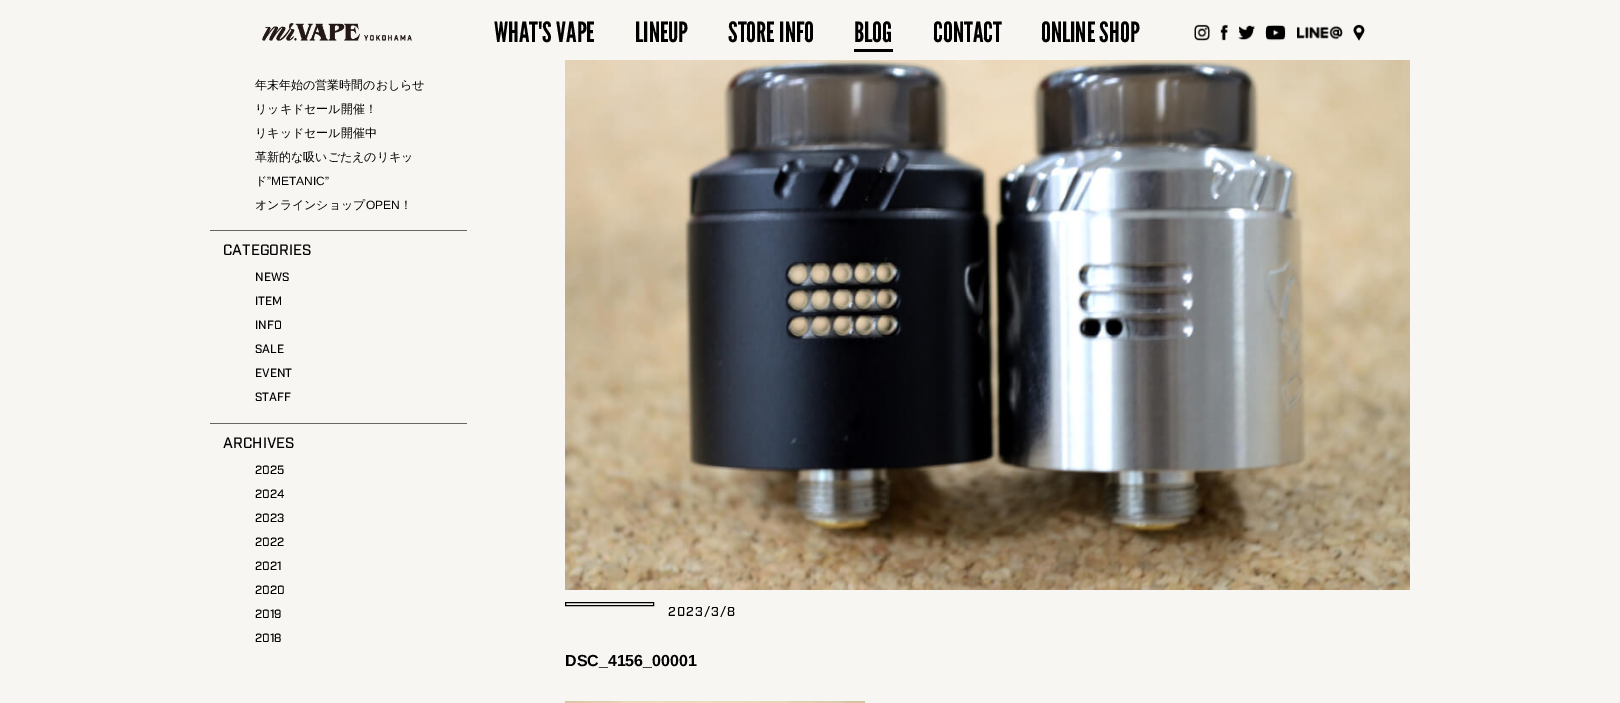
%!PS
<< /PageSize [1620 703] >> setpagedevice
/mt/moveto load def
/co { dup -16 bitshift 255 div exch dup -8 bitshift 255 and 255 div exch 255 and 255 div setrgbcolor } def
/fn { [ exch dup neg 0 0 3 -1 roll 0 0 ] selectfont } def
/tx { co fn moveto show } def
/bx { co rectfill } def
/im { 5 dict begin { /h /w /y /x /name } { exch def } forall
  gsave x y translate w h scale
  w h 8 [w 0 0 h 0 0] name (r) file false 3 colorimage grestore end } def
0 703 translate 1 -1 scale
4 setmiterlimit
0 0 1620 703 16#F8F6F2 bx
(media/1.raw) 262 23 150 18 im
854 49 39 3 16#000000 bx
(media/2.raw) 1194 24 16 17 im
(media/3.raw) 1220 24 8 17 im
(media/4.raw) 1238 25 17 15 im
(media/5.raw) 1265 25 21 16 im
(media/6.raw) 1297 25 46 15 im
(media/7.raw) 1353 24 12 17 im
210 230 257 1 16#666666 bx
210 423 257 1 16#666666 bx
(media/8.raw) 565 60 845 530 im
16#000000 co
565.5 602.5 88 3 rectstroke
(media/9.raw) 565 701 300 2 im
(WHAT'S VAPE) 494 42 /LeagueGothic-Regular 28 16#000000 tx
(LINEUP) 635 42 /LeagueGothic-Regular 28 16#000000 tx
(STORE INFO) 728 42 /LeagueGothic-Regular 28 16#000000 tx
(BLOG) 854 42 /LeagueGothic-Regular 28 16#000000 tx
(CONTACT) 933 42 /LeagueGothic-Regular 28 16#000000 tx
(ONLINE SHOP) 1041 42 /LeagueGothic-Regular 28 16#000000 tx
(年末年始の営業時間のおしらせ) 255 89 /WenQuanYiZenHei-Medium 12 16#000000 tx
(リッキドセール開催！) 255 113 /WenQuanYiZenHei-Medium 12 16#000000 tx
(リキッドセール開催中) 255 137 /WenQuanYiZenHei-Medium 12 16#000000 tx
(革新的な吸いごたえのリキッ) 255 161 /WenQuanYiZenHei-Medium 12 16#000000 tx
(ド) 255 185 /WenQuanYiZenHei-Medium 12 16#000000 tx
(”METANIC”) 267 185 /LiberationSans-Regular 12 16#000000 tx
(オンラインショップ) 255 209 /WenQuanYiZenHei-Medium 12 16#000000 tx
(OPEN) 366 209 /LiberationSans-Regular 12 16#000000 tx
(！) 400 209 /WenQuanYiZenHei-Medium 12 16#000000 tx
(CATEGORIES) 223 255 /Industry-Medium 15 16#000000 tx
(NEWS) 255 281 /Industry-Medium 12 16#000000 tx
(ITEM) 255 305 /Industry-Medium 12 16#000000 tx
(INFO) 255 329 /Industry-Medium 12 16#000000 tx
(SALE) 255 353 /Industry-Medium 12 16#000000 tx
(EVENT) 255 377 /Industry-Medium 12 16#000000 tx
(STAFF) 255 401 /Industry-Medium 12 16#000000 tx
(ARCHIVES) 223 448 /Industry-Medium 15 16#000000 tx
(2025) 255 474 /Industry-Medium 12 16#000000 tx
(2024) 255 498 /Industry-Medium 12 16#000000 tx
(2023) 255 522 /Industry-Medium 12 16#000000 tx
(2022) 255 546 /Industry-Medium 12 16#000000 tx
(2021) 255 570 /Industry-Medium 12 16#000000 tx
(2020) 255 594 /Industry-Medium 12 16#000000 tx
(2019) 255 618 /Industry-Medium 12 16#000000 tx
(2018) 255 642 /Industry-Medium 12 16#000000 tx
/Industry-Medium 13 fn
668 616 mt 1 0 (2023/3/8) ashow
(DSC_4156_00001) 565 666 /LiberationSans-Bold 16 16#000000 tx
showpage
